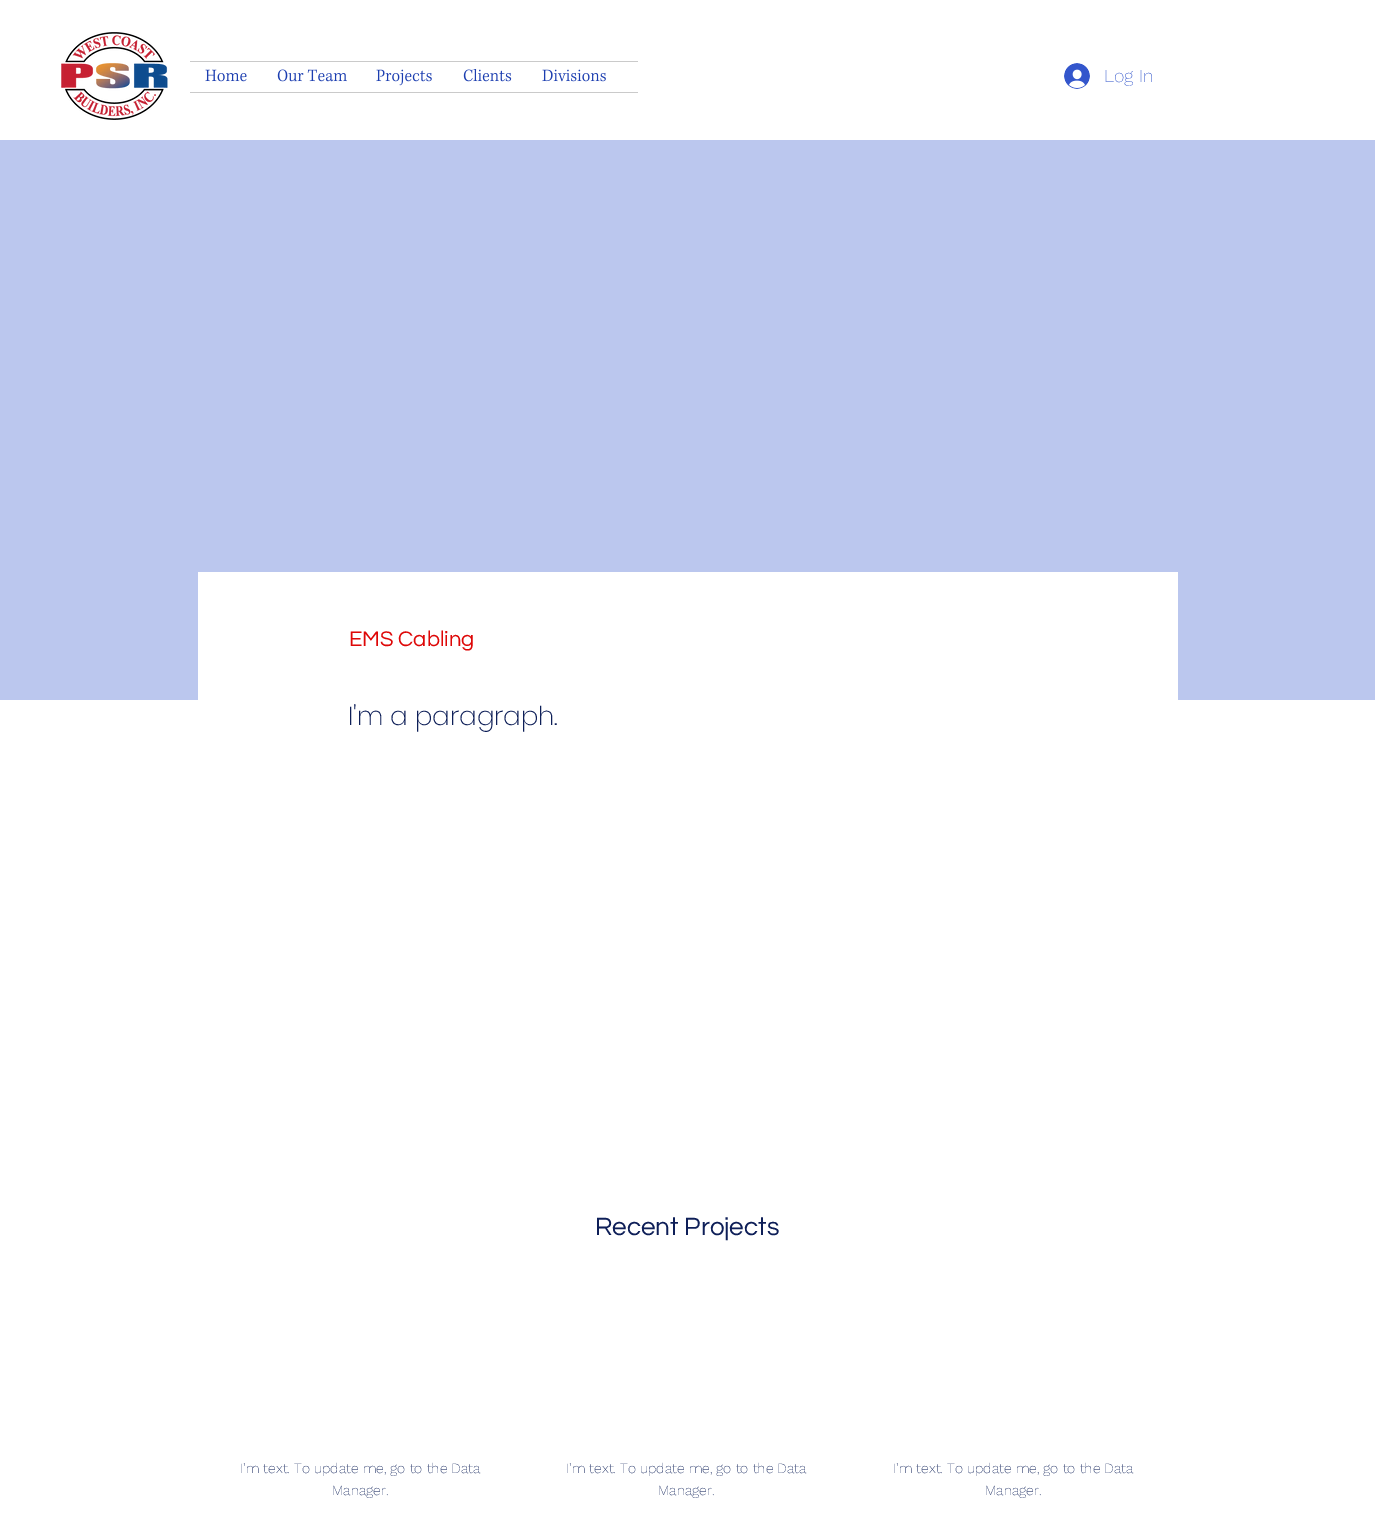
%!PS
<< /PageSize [1375 1530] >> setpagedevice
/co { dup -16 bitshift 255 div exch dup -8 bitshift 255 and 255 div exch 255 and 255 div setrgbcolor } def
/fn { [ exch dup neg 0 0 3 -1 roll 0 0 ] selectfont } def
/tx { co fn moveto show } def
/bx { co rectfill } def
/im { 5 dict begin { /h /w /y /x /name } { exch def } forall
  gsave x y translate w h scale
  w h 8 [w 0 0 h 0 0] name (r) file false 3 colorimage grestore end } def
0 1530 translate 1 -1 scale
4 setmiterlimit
0 0 1375 1530 16#FFFFFF bx
(media/1.raw) 61 32 107 88 im
190 61 448 1 16#CACACA bx
190 92 448 1 16#CACACA bx
(media/2.raw) 205 69 42 13 im
(media/3.raw) 277 69 70 13 im
(media/4.raw) 376 69 56 17 im
(media/5.raw) 463 69 49 13 im
(media/6.raw) 542 69 64 13 im
(media/7.raw) 1064 63 26 26 im
0 140 1375 560 16#BBC7EE bx
198 572 980 128 16#FFFFFF bx
(Log In) 1104 82 /WorkSans-ExtraLight 18 16#3356CC tx
(EMS Cabling) 349 646 /Questrial-Regular 22 16#DE0707 tx
(I'm a paragraph.) 348 725 /Poppins-ExtraLight 26 16#0E1F58 tx
(Recent Projects) 595 1235 /Questrial-Regular 26 16#0E1F58 tx
(I’m text. To update me, go to the Data) 240 1473 /WorkSans-ExtraLight 14 16#0E1F58 tx
(Manager.) 332 1495 /WorkSans-ExtraLight 14 16#0E1F58 tx
(I’m text. To update me, go to the Data) 566 1473 /WorkSans-ExtraLight 14 16#0E1F58 tx
(Manager.) 658 1495 /WorkSans-ExtraLight 14 16#0E1F58 tx
(I’m text. To update me, go to the Data) 893 1473 /WorkSans-ExtraLight 14 16#0E1F58 tx
(Manager.) 985 1495 /WorkSans-ExtraLight 14 16#0E1F58 tx
showpage
